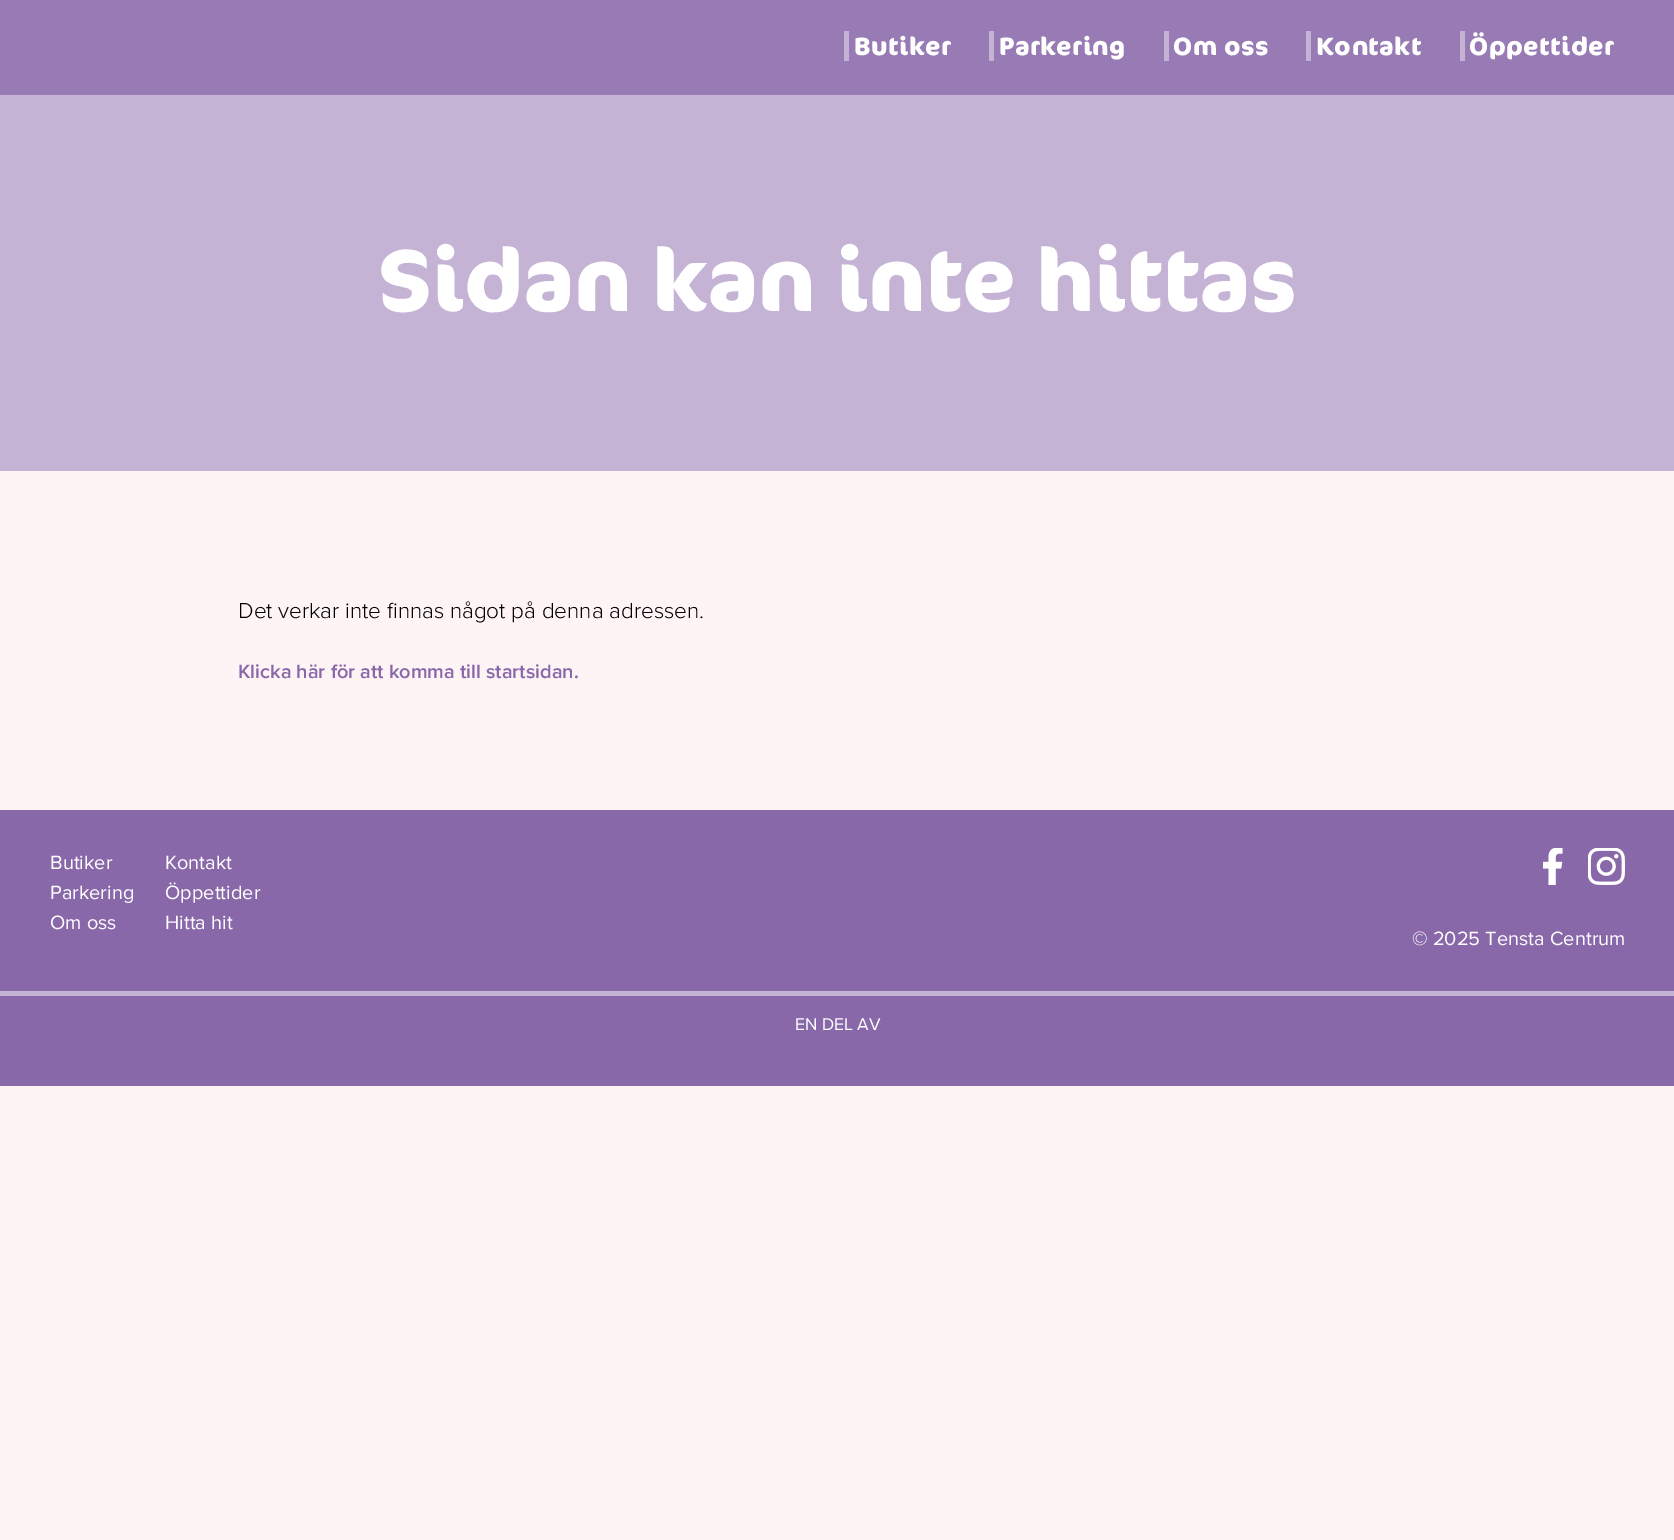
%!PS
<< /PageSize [1674 1540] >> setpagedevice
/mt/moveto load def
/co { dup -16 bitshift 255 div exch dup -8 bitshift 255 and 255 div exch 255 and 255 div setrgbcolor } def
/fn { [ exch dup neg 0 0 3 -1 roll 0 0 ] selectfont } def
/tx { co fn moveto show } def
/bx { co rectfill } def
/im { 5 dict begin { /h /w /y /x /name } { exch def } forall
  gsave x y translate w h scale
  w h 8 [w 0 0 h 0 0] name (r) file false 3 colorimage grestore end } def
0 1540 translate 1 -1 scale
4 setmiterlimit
0 0 1674 1540 16#FEF3F5 bx
0 0 1674 95 16#987BB5 bx
844 31 5 30 16#C4B3D4 bx
989 31 5 30 16#C4B3D4 bx
1164 31 5 30 16#C4B3D4 bx
1306 31 5 30 16#C4B3D4 bx
1460 31 5 30 16#C4B3D4 bx
0 95 1674 376 16#C4B3D4 bx
0 810 1674 276 16#8968AA bx
(media/1.raw) 1543 848 20 37 im
(media/2.raw) 1588 848 37 37 im
0 991 1674 5 16#C4B3D4 bx
/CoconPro-Bold 25 fn
16#FFFFFF co
854 55 mt .5 0 (Butiker) ashow
999 55 mt .5 0 (Parkering) ashow
1173 55 mt .5 0 (Om oss) ashow
1316 55 mt .5 0 (Kontakt) ashow
1469 55 mt .5 0 (Öppettider) ashow
(Sidan kan inte hittas) 378 311 /CoconPro-Bold 87.5 16#FFFFFF tx
(Det verkar inte finnas något på denna adressen.) 238 618 /ProximaNova-Light 22.5 16#000000 tx
(Klicka här för att komma till startsidan.) 238 678 /ProximaNova-SemiBold 20 16#8968AA tx
(Butiker) 50 869 /ProximaNova-Regular 20 16#FFFFFF tx
(Kontakt) 165 869 /ProximaNova-Regular 20 16#FFFFFF tx
(Parkering) 50 899 /ProximaNova-Regular 20 16#FFFFFF tx
(Öppettider) 165 899 /ProximaNova-Regular 20 16#FFFFFF tx
(Om oss) 50 929 /ProximaNova-Regular 20 16#FFFFFF tx
(Hitta hit) 165 929 /ProximaNova-Regular 20 16#FFFFFF tx
(© 2025 Tensta Centrum) 1412 945 /ProximaNova-Regular 20 16#FFFFFF tx
(EN DEL AV) 795 1030 /ProximaNova-Regular 17.5 16#FFFFFF tx
showpage
